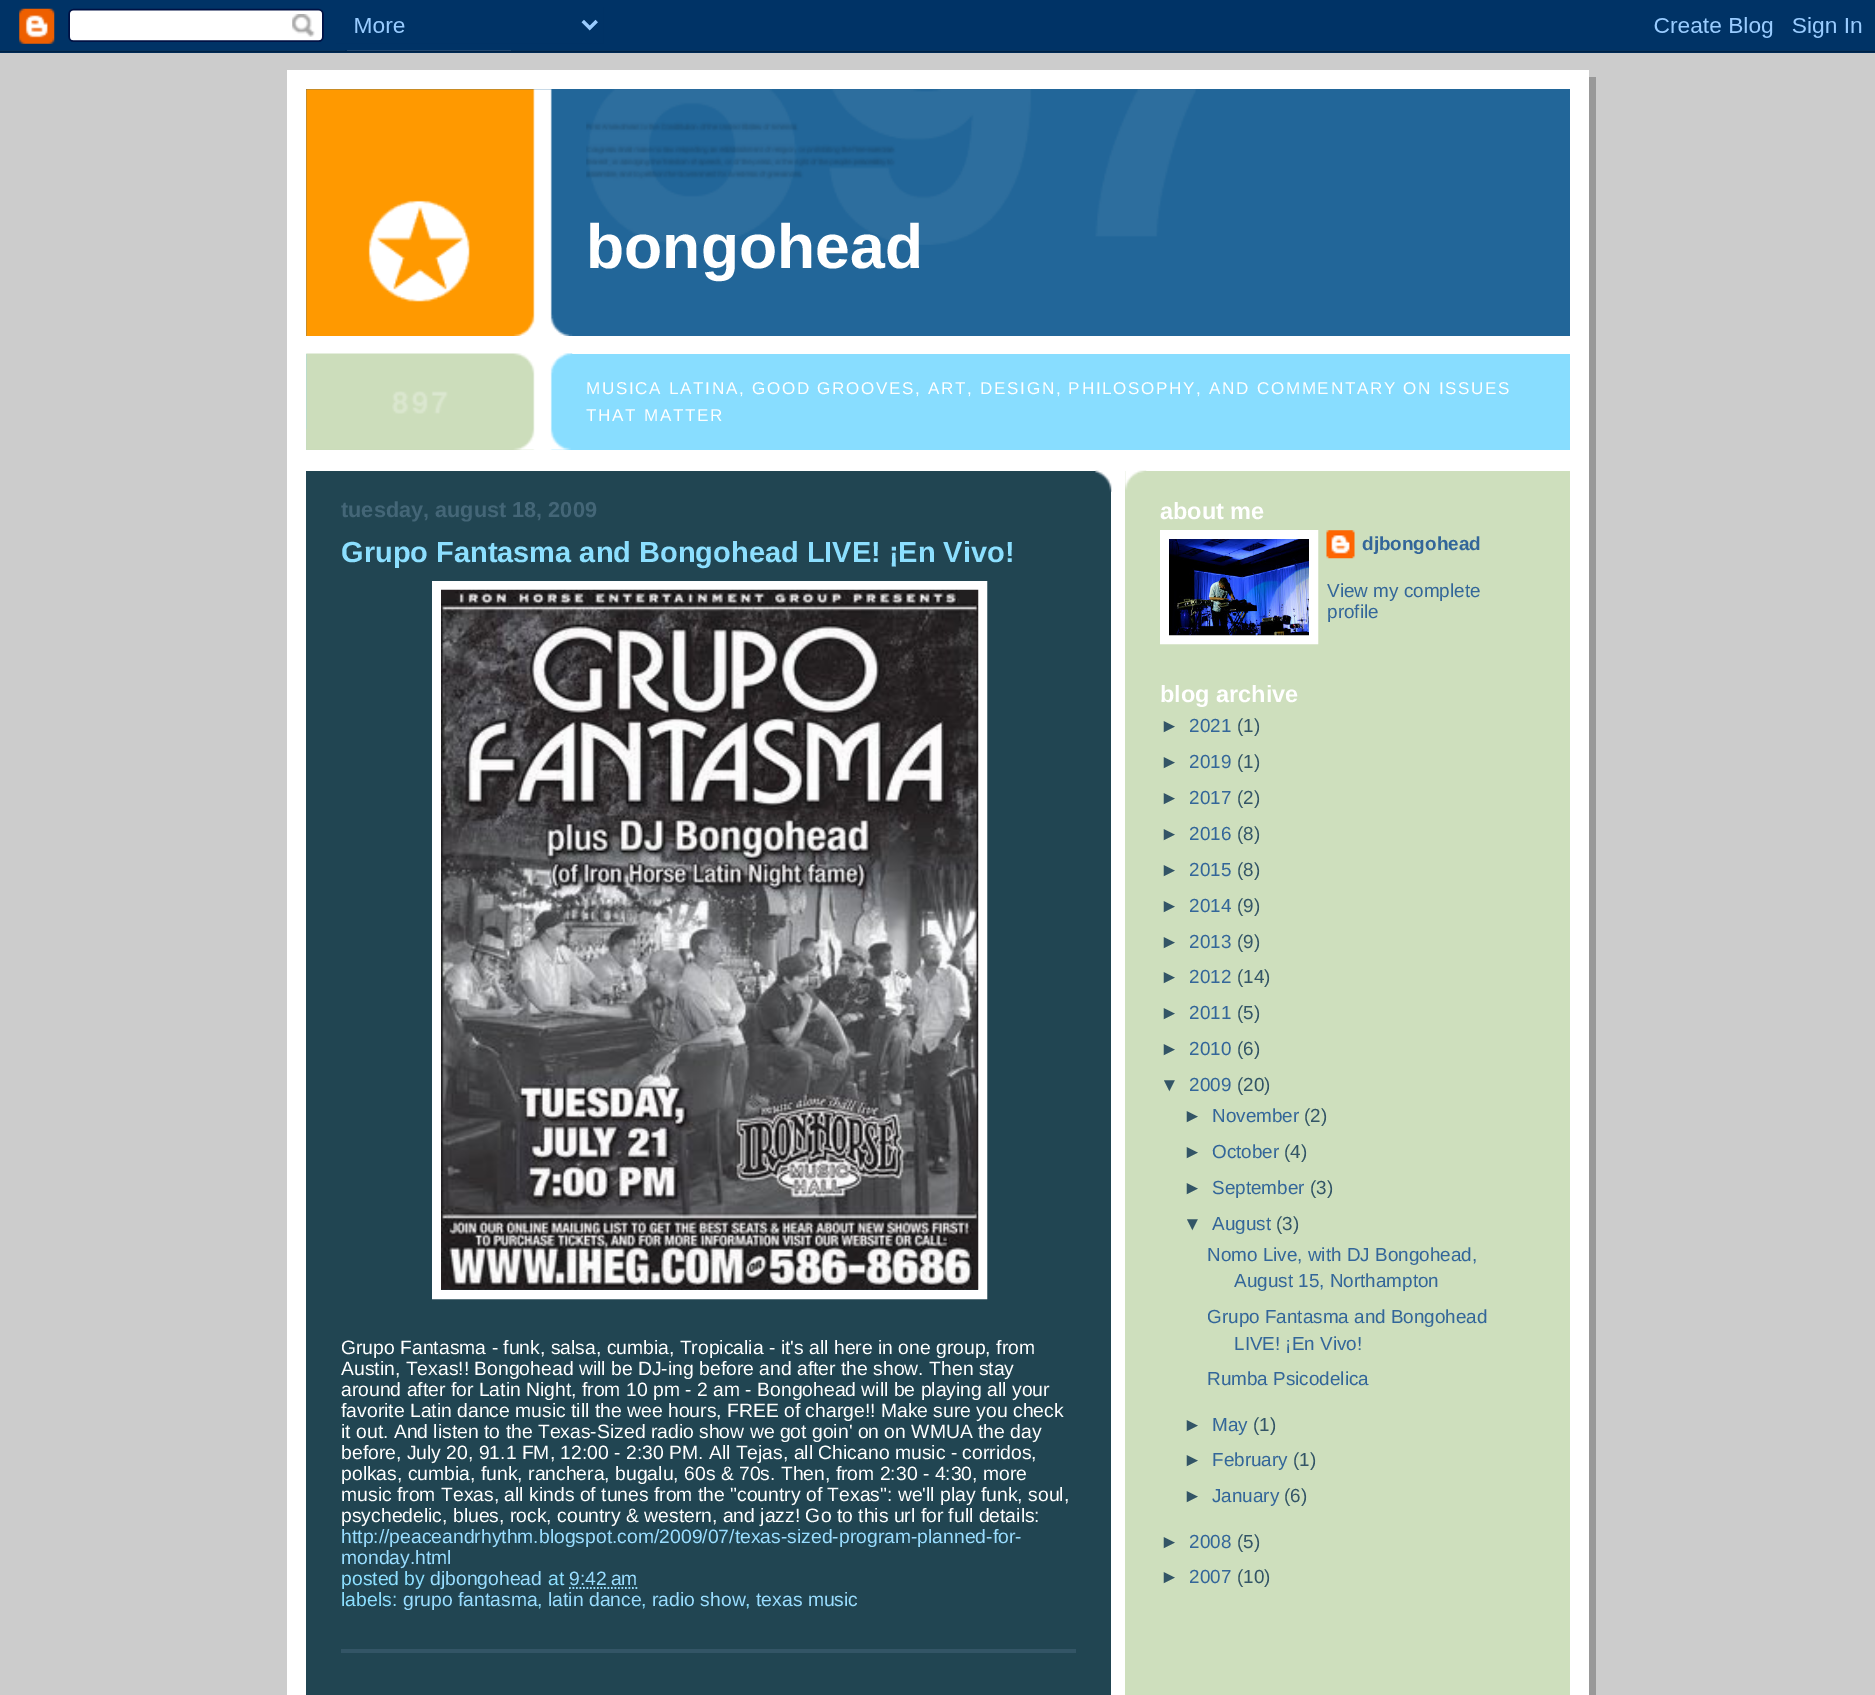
%!PS
<< /PageSize [1875 1695] >> setpagedevice
/mt/moveto load def
/li/lineto load def
/st/stroke load def
/lw/setlinewidth load def
/co { dup -16 bitshift 255 div exch dup -8 bitshift 255 and 255 div exch 255 and 255 div setrgbcolor } def
/fn { [ exch dup neg 0 0 3 -1 roll 0 0 ] selectfont } def
/tx { co fn moveto show } def
/bx { co rectfill } def
/im { 5 dict begin { /h /w /y /x /name } { exch def } forall
  gsave x y translate w h scale
  w h 8 [w 0 0 h 0 0] name (r) file false 3 colorimage grestore end } def
0 1695 translate 1 -1 scale
4 setmiterlimit
0 0 1875 1695 16#CCCCCC bx
(media/1.raw) 0 0 1875 53 im
1589 77 7 1618 16#999999 bx
287 70 1302 1625 16#FFFFFF bx
306 89 1264 247 16#226699 bx
(media/2.raw) 306 89 267 247 im
(media/3.raw) 586 89 610 156 im
306 354 1264 96 16#88DDFF bx
(media/4.raw) 306 353 267 97 im
(media/5.raw) 306 429 265 21 im
(media/6.raw) 392 391 56 23 im
306 471 805 1224 16#214552 bx
(media/7.raw) 1095 470 17 22 im
16#FFFFFF co
9 lw
436.5 585.5 546 709 rectstroke
(media/8.raw) 441 589 538 701 im
16#99DDFF co
1.8 lw
[1.75 1.75] 0 setdash
569 1588 mt 637.5 1588 li st
341 1649 735 4 16#335566 bx
1125 471 445 1224 16#CEDFBD bx
(media/9.raw) 1125 470 22 20 im
16#FFFFFF co
9 lw
[] 0 setdash
1164.5 534.5 149 105 rectstroke
(media/10.raw) 1169 539 140 97 im
(media/11.raw) 1326 530 29 29 im
(bongohead) 586 268 /LiberationSans-Bold 62.5 16#FFFFFF tx
/LiberationSans-Regular 17.05 fn
586 394 mt 1.7 0 (MUSICA LATINA, GOOD GROOVES, ART, DESIGN, PHILOSOPHY, AND COMMENTARY ON ISSUES) ashow
586 421 mt 1.7 0 (THAT MATTER) ashow
(tuesday, august 18, 2009) 341 517 /LiberationSans-Bold 21.7 16#446677 tx
(Grupo Fantasma and Bongohead LIVE! ¡En Vivo!) 341 562 /LiberationSans-Bold 29 16#8CDFFF tx
(Grupo Fantasma - funk, salsa, cumbia, Tropicalia - it's all here in one group, from) 341 1354 /LiberationSans-Regular 19.35 16#FFFFFF tx
(Austin, Texas!! Bongohead will be DJ-ing before and after the show. Then stay) 341 1375 /LiberationSans-Regular 19.35 16#FFFFFF tx
(around after for Latin Night, from 10 pm - 2 am - Bongohead will be playing all your) 341 1396 /LiberationSans-Regular 19.35 16#FFFFFF tx
(favorite Latin dance music till the wee hours, FREE of charge!! Make sure you check) 341 1417 /LiberationSans-Regular 19.35 16#FFFFFF tx
(it out. And listen to the Texas-Sized radio show we got goin' on on WMUA the day) 341 1438 /LiberationSans-Regular 19.35 16#FFFFFF tx
(before, July 20, 91.1 FM, 12:00 - 2:30 PM. All Tejas, all Chicano music - corridos,) 341 1459 /LiberationSans-Regular 19.35 16#FFFFFF tx
(polkas, cumbia, funk, ranchera, bugalu, 60s & 70s. Then, from 2:30 - 4:30, more) 341 1480 /LiberationSans-Regular 19.35 16#FFFFFF tx
(music from Texas, all kinds of tunes from the "country of Texas": we'll play funk, soul,) 341 1501 /LiberationSans-Regular 19.35 16#FFFFFF tx
(psychedelic, blues, rock, country & western, and jazz! Go to this url for full details:) 341 1522 /LiberationSans-Regular 19.35 16#FFFFFF tx
(http://peaceandrhythm.blogspot.com/2009/07/texas-sized-program-planned-for-) 341 1543 /LiberationSans-Regular 19.35 16#99DDFF tx
(monday.html) 341 1564 /LiberationSans-Regular 19.35 16#99DDFF tx
(posted by) 341 1585 /LiberationSans-Regular 19.35 16#8CDFFF tx
(djbongohead) 430 1585 /LiberationSans-Regular 19.35 16#99DDFF tx
(at) 548 1585 /LiberationSans-Regular 19.35 16#8CDFFF tx
(9:42 am) 569 1585 /LiberationSans-Regular 19.35 16#99DDFF tx
(labels:) 341 1606 /LiberationSans-Regular 19.35 16#8CDFFF tx
(grupo fantasma) 403 1606 /LiberationSans-Regular 19.35 16#99DDFF tx
(,) 537 1606 /LiberationSans-Regular 19.35 16#8CDFFF tx
(latin dance) 548 1606 /LiberationSans-Regular 19.35 16#99DDFF tx
(,) 641 1606 /LiberationSans-Regular 19.35 16#8CDFFF tx
(radio show) 652 1606 /LiberationSans-Regular 19.35 16#99DDFF tx
(,) 745 1606 /LiberationSans-Regular 19.35 16#8CDFFF tx
(texas music) 756 1606 /LiberationSans-Regular 19.35 16#99DDFF tx
(about me) 1160 519 /LiberationSans-Bold 23.5 16#FFFFFF tx
(djbongohead) 1362 550 /LiberationSans-Bold 18.9 16#336699 tx
(View my complete) 1327 597 /LiberationSans-Regular 18.9 16#336699 tx
(profile) 1327 618 /LiberationSans-Regular 18.9 16#336699 tx
(blog archive) 1160 702 /LiberationSans-Bold 23.5 16#FFFFFF tx
(►) 1160 732 /LiberationSans-Regular 18.9 16#335566 tx
(2021) 1189 732 /LiberationSans-Regular 18.9 16#336699 tx
(\(1\)) 1237 732 /LiberationSans-Regular 18.9 16#335566 tx
(►) 1160 768 /LiberationSans-Regular 18.9 16#335566 tx
(2019) 1189 768 /LiberationSans-Regular 18.9 16#336699 tx
(\(1\)) 1237 768 /LiberationSans-Regular 18.9 16#335566 tx
(►) 1160 804 /LiberationSans-Regular 18.9 16#335566 tx
(2017) 1189 804 /LiberationSans-Regular 18.9 16#336699 tx
(\(2\)) 1237 804 /LiberationSans-Regular 18.9 16#335566 tx
(►) 1160 840 /LiberationSans-Regular 18.9 16#335566 tx
(2016) 1189 840 /LiberationSans-Regular 18.9 16#336699 tx
(\(8\)) 1237 840 /LiberationSans-Regular 18.9 16#335566 tx
(►) 1160 876 /LiberationSans-Regular 18.9 16#335566 tx
(2015) 1189 876 /LiberationSans-Regular 18.9 16#336699 tx
(\(8\)) 1237 876 /LiberationSans-Regular 18.9 16#335566 tx
(►) 1160 912 /LiberationSans-Regular 18.9 16#335566 tx
(2014) 1189 912 /LiberationSans-Regular 18.9 16#336699 tx
(\(9\)) 1237 912 /LiberationSans-Regular 18.9 16#335566 tx
(►) 1160 948 /LiberationSans-Regular 18.9 16#335566 tx
(2013) 1189 948 /LiberationSans-Regular 18.9 16#336699 tx
(\(9\)) 1237 948 /LiberationSans-Regular 18.9 16#335566 tx
(►) 1160 983 /LiberationSans-Regular 18.9 16#335566 tx
(2012) 1189 983 /LiberationSans-Regular 18.9 16#336699 tx
(\(14\)) 1237 983 /LiberationSans-Regular 18.9 16#335566 tx
(►) 1160 1019 /LiberationSans-Regular 18.9 16#335566 tx
(2011) 1189 1019 /LiberationSans-Regular 18.9 16#336699 tx
(\(5\)) 1237 1019 /LiberationSans-Regular 18.9 16#335566 tx
(►) 1160 1055 /LiberationSans-Regular 18.9 16#335566 tx
(2010) 1189 1055 /LiberationSans-Regular 18.9 16#336699 tx
(\(6\)) 1237 1055 /LiberationSans-Regular 18.9 16#335566 tx
(▼) 1160 1091 /LiberationSans-Regular 18.9 16#335566 tx
(2009) 1189 1091 /LiberationSans-Regular 18.9 16#336699 tx
(\(20\)) 1237 1091 /LiberationSans-Regular 18.9 16#335566 tx
(►) 1183 1122 /LiberationSans-Regular 18.9 16#335566 tx
(November) 1212 1122 /LiberationSans-Regular 18.9 16#336699 tx
(\(2\)) 1304 1122 /LiberationSans-Regular 18.9 16#335566 tx
(►) 1183 1158 /LiberationSans-Regular 18.9 16#335566 tx
(October) 1212 1158 /LiberationSans-Regular 18.9 16#336699 tx
(\(4\)) 1284 1158 /LiberationSans-Regular 18.9 16#335566 tx
(►) 1183 1194 /LiberationSans-Regular 18.9 16#335566 tx
(September) 1212 1194 /LiberationSans-Regular 18.9 16#336699 tx
(\(3\)) 1310 1194 /LiberationSans-Regular 18.9 16#335566 tx
(▼) 1183 1230 /LiberationSans-Regular 18.9 16#335566 tx
(August) 1212 1230 /LiberationSans-Regular 18.9 16#336699 tx
(\(3\)) 1276 1230 /LiberationSans-Regular 18.9 16#335566 tx
(Nomo Live, with DJ Bongohead,) 1207 1261 /LiberationSans-Regular 18.9 16#336699 tx
(August 15, Northampton) 1234 1287 /LiberationSans-Regular 18.9 16#336699 tx
(Grupo Fantasma and Bongohead) 1207 1323 /LiberationSans-Regular 18.9 16#336699 tx
(LIVE! ¡En Vivo!) 1234 1350 /LiberationSans-Regular 18.9 16#336699 tx
(Rumba Psicodelica) 1207 1385 /LiberationSans-Regular 18.9 16#336699 tx
(►) 1183 1431 /LiberationSans-Regular 18.9 16#335566 tx
(May) 1212 1431 /LiberationSans-Regular 18.9 16#336699 tx
(\(1\)) 1253 1431 /LiberationSans-Regular 18.9 16#335566 tx
(►) 1183 1466 /LiberationSans-Regular 18.9 16#335566 tx
(February) 1212 1466 /LiberationSans-Regular 18.9 16#336699 tx
(\(1\)) 1293 1466 /LiberationSans-Regular 18.9 16#335566 tx
(►) 1183 1502 /LiberationSans-Regular 18.9 16#335566 tx
(January) 1212 1502 /LiberationSans-Regular 18.9 16#336699 tx
(\(6\)) 1284 1502 /LiberationSans-Regular 18.9 16#335566 tx
(►) 1160 1548 /LiberationSans-Regular 18.9 16#335566 tx
(2008) 1189 1548 /LiberationSans-Regular 18.9 16#336699 tx
(\(5\)) 1237 1548 /LiberationSans-Regular 18.9 16#335566 tx
(►) 1160 1583 /LiberationSans-Regular 18.9 16#335566 tx
(2007) 1189 1583 /LiberationSans-Regular 18.9 16#336699 tx
(\(10\)) 1237 1583 /LiberationSans-Regular 18.9 16#335566 tx
showpage
